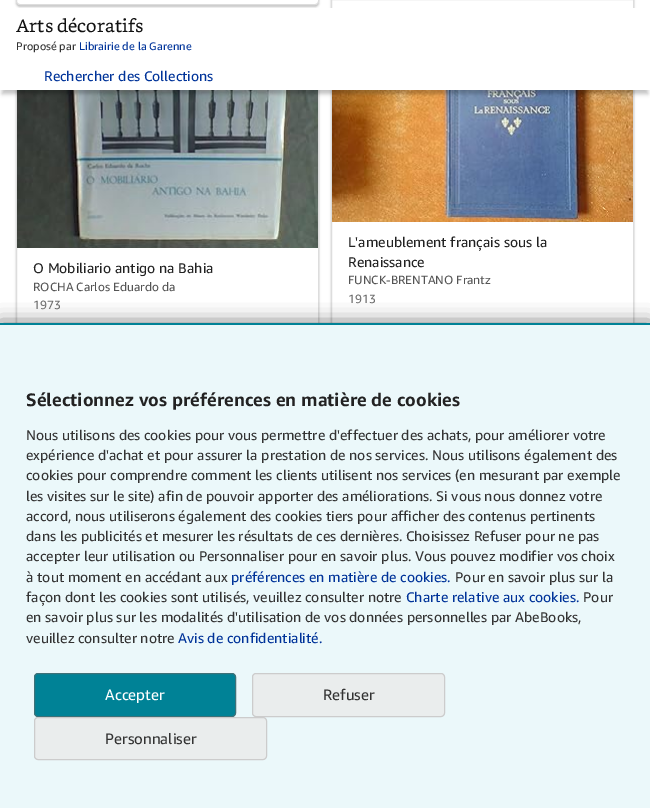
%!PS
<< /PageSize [650 808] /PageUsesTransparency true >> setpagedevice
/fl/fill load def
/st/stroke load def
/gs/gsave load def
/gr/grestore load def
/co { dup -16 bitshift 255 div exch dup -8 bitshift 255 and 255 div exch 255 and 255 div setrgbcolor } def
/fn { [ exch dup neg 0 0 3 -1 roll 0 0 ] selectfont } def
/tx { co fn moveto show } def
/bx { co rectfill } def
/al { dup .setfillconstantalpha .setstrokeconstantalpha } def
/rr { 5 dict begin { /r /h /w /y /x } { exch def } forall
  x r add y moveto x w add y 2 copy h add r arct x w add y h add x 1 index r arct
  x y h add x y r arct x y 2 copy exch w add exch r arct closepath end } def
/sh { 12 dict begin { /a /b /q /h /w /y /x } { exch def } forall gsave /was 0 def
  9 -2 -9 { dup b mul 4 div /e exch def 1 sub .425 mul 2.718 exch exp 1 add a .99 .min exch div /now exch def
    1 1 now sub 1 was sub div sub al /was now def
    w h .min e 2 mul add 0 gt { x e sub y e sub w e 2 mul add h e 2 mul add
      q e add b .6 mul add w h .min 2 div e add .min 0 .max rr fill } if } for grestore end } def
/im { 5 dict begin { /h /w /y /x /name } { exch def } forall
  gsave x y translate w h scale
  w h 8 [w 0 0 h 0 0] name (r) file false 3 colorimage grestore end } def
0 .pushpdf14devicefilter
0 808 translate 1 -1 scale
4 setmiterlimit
0 0 650 808 16#FFFFFF bx
16#000000 co
331 -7 303 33 4 1 .24 sh
332 0 301 8 16#FFFFFF bx
16#DDDDDD co
331.5 -.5 302 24 rectstroke
16#000000 co
16 23 303 316 4 1 .24 sh
17 248 301 75 16#FFFFFF bx
16#DDDDDD co
16.5 21.5 302 315 rectstroke
(media/1.raw) 17 90 301 158 im
16#000000 co
331 42 303 291 4 1 .24 sh
332 222 301 101 16#FFFFFF bx
16#DDDDDD co
331.5 40.5 302 290 rectstroke
(media/2.raw) 332 90 301 132 im
16#000000 co
2 16 646 78 0 2 .24 sh
16 -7 303 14 4 1 .24 sh
0 8 650 82 16#FFFFFF bx
16.5 -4.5 302 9 3.5 rr gs fl gr
16#DDDDDD co
st
16#000000 co
0 325 650 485 0 10 .7 sh
0 325 650 483 16#EBF8FA bx
0 323 650 2 16#008296 bx
34.5 673.5 201 43 3.5 rr gs fl gr
16#3D7178 co
st
16#EAEDED co
252.5 673.5 192 43 3.5 rr gs fl gr
16#CCCCCC co
st
16#EAEDED co
34.5 717.5 232 42 3.5 rr gs fl gr
16#CCCCCC co
st
(Arts décoratifs) 16 32 /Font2-Regular 18 16#111111 tx
(Proposé par) 16 50 /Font-Regular 11 16#333333 tx
(Librairie de la Garenne) 79 50 /Font-Regular 11 16#003399 tx
(Rechercher des Collections) 44 81 /Font-Regular 14 16#003399 tx
(O Mobiliario antigo na Bahia) 33 273 /Font-Regular 14 16#222222 tx
(ROCHA Carlos Eduardo da) 33 291 /Font-Regular 12 16#555555 tx
(1973) 33 309 /Font-Regular 12 16#6E6E6E tx
(L'ameublement français sous la) 348 247 /Font-Regular 14 16#222222 tx
(Renaissance) 348 267 /Font-Regular 14 16#222222 tx
(FUNCK-BRENTANO Frantz) 348 284 /Font-Regular 12 16#555555 tx
(1913) 348 303 /Font-Regular 12 16#6E6E6E tx
(Sélectionnez vos préférences en matière de cookies) 26 406 /Font-Bold 18 16#222222 tx
(Nous utilisons des cookies pour vous permettre d'effectuer des achats, pour améliorer votre) 26 440 /Font-Regular 14 16#333333 tx
(expérience d'achat et pour assurer la prestation de nos services. Nous utilisons également des) 26 460 /Font-Regular 14 16#333333 tx
(cookies pour comprendre comment les clients utilisent nos services \(en mesurant par exemple) 26 480 /Font-Regular 14 16#333333 tx
(les visites sur le site\) afin de pouvoir apporter des améliorations. Si vous nous donnez votre) 26 501 /Font-Regular 14 16#333333 tx
(accord, nous utiliserons également des cookies tiers pour afficher des contenus pertinents) 26 521 /Font-Regular 14 16#333333 tx
(dans les publicités et mesurer les résultats de ces dernières. Choisissez Refuser pour ne pas) 26 541 /Font-Regular 14 16#333333 tx
(accepter leur utilisation ou Personnaliser pour en savoir plus. Vous pouvez modifier vos choix) 26 561 /Font-Regular 14 16#333333 tx
(à tout moment en accédant aux) 26 582 /Font-Regular 14 16#333333 tx
(préférences en matière de cookies.) 231 582 /Font-Regular 14 16#003399 tx
(Pour en savoir plus sur la) 455 582 /Font-Regular 14 16#333333 tx
(façon dont les cookies sont utilisés, veuillez consulter notre) 26 602 /Font-Regular 14 16#333333 tx
(Charte relative aux cookies.) 406 602 /Font-Regular 14 16#003399 tx
(Pour) 583 602 /Font-Regular 14 16#333333 tx
(en savoir plus sur les modalités d'utilisation de vos données personnelles par AbeBooks,) 26 622 /Font-Regular 14 16#333333 tx
(veuillez consulter notre) 26 643 /Font-Regular 14 16#333333 tx
(Avis de confidentialité.) 178 643 /Font-Regular 14 16#003399 tx
(Accepter) 105 700 /Font-Regular 15 16#FFFFFF tx
(Refuser) 323 700 /Font-Regular 15 16#333333 tx
(Personnaliser) 105 744 /Font-Regular 15 16#333333 tx
.poppdf14devicefilter showpage
